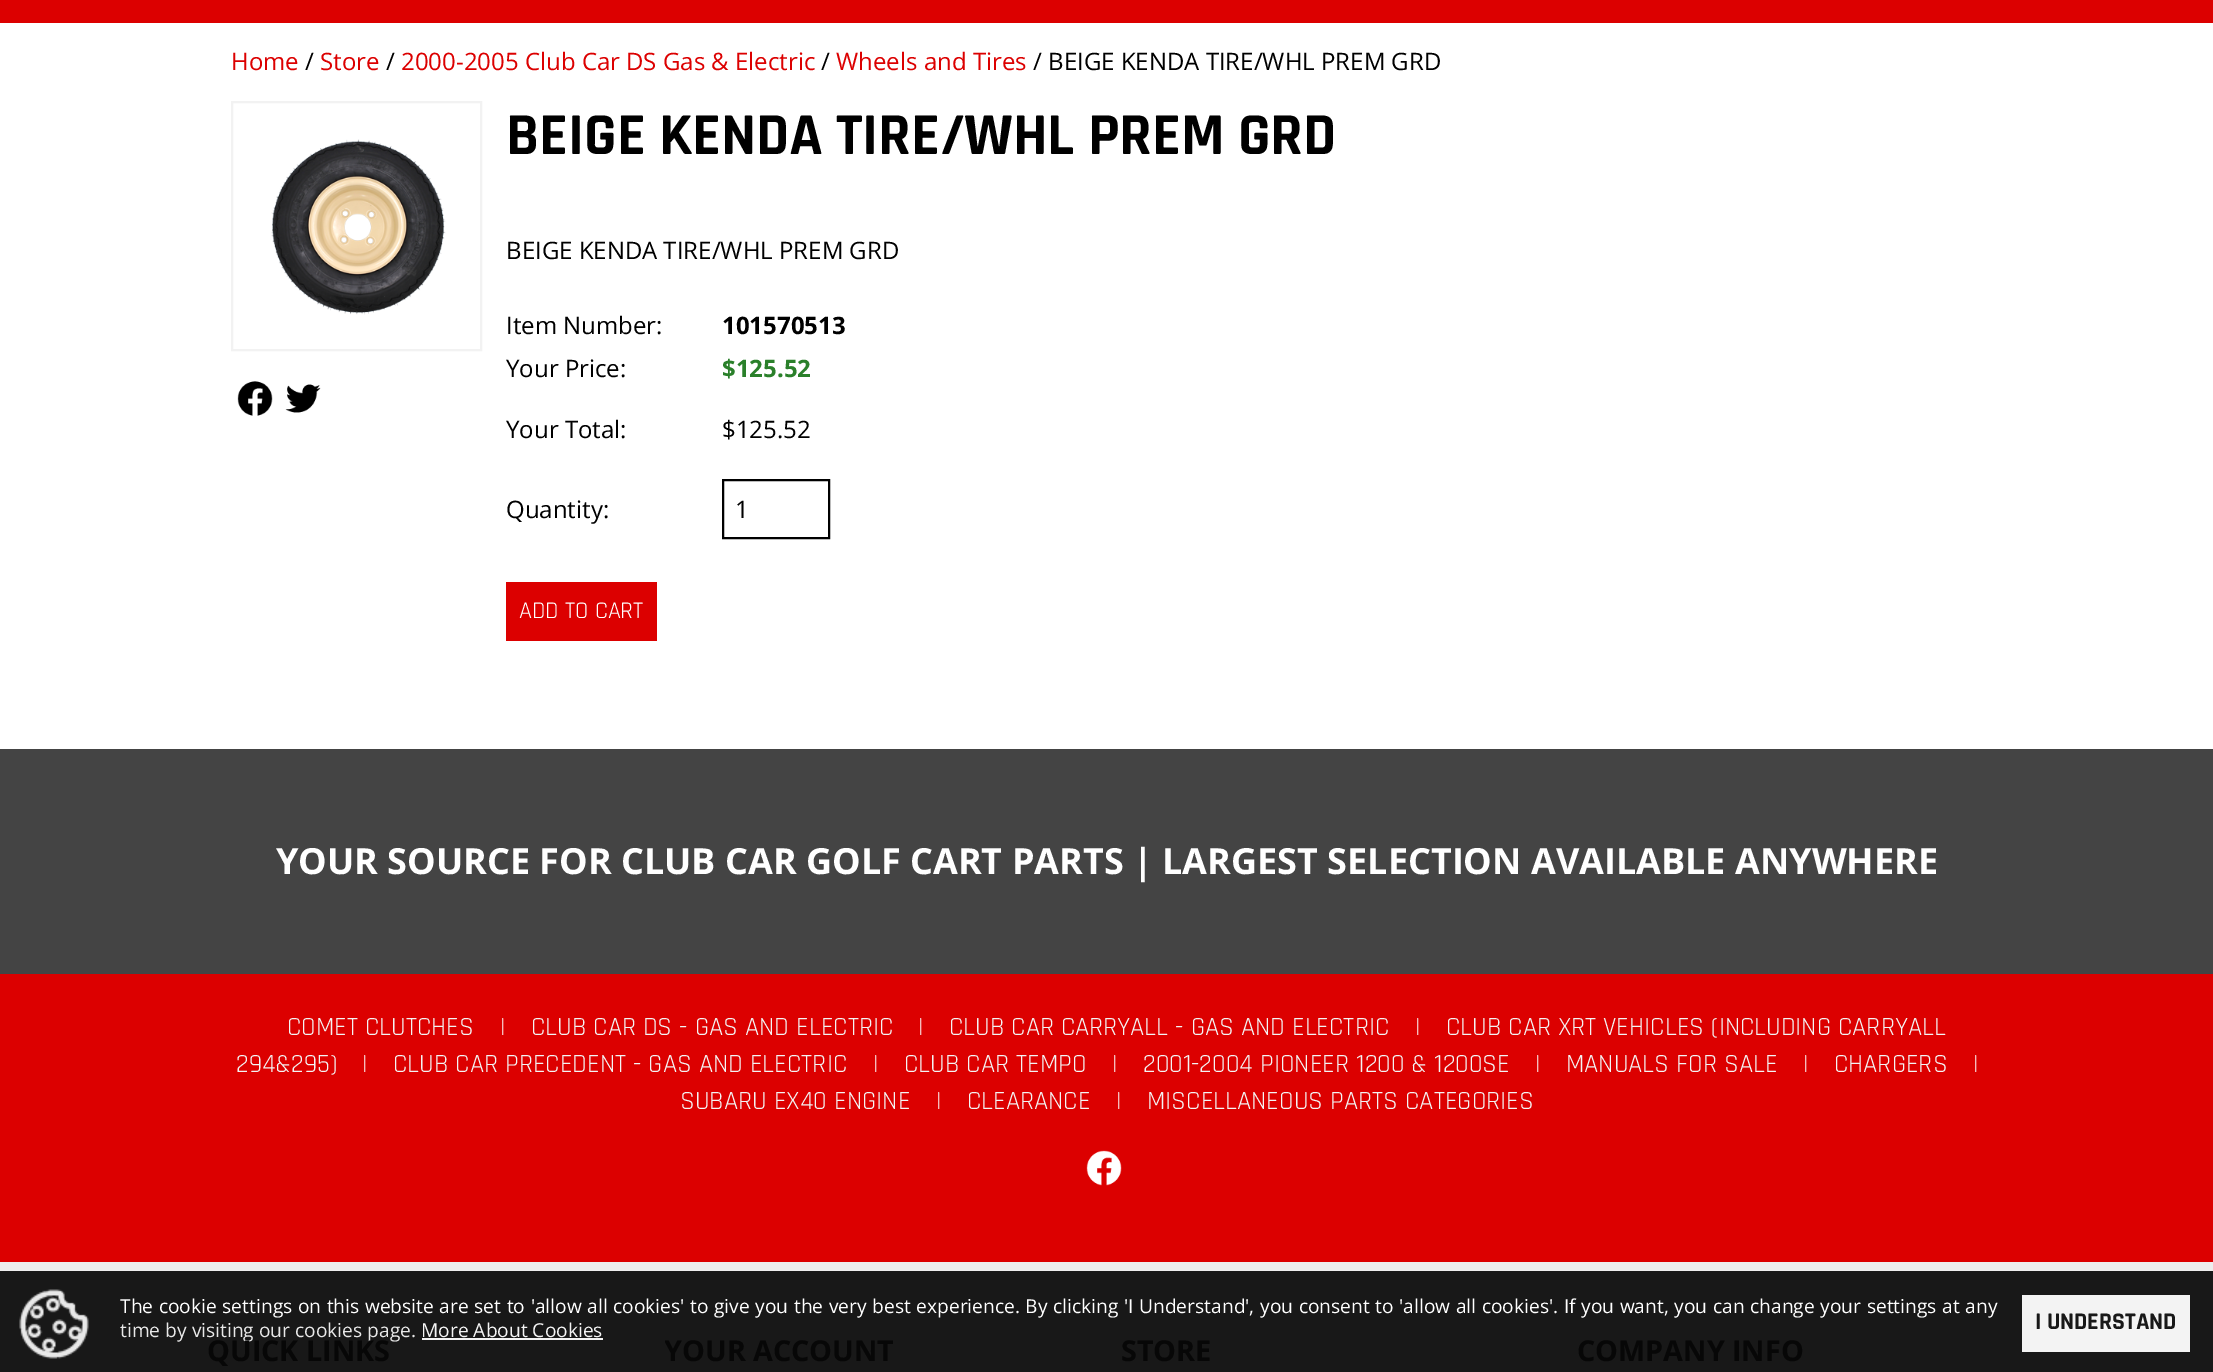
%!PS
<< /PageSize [2213 1372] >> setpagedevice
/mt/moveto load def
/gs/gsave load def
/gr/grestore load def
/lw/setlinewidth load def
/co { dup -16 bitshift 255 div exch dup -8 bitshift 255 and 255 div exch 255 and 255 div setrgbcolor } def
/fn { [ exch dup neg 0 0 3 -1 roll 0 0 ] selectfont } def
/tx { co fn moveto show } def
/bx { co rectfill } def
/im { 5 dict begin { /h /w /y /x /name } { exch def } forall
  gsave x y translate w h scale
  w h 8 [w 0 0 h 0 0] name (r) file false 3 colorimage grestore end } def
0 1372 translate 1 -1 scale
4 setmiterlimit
0 0 2213 1372 16#FFFFFF bx
0 0 2213 23 16#DC0000 bx
16#F2F2F2 co
2 lw
232 102 249 248 rectstroke
(media/1.raw) 271 139 175 176 im
(media/2.raw) 237 381 36 35 im
(media/3.raw) 285 384 36 29 im
16#000000 co
723 480 106 58 rectstroke
506 582 151 59 16#DC0000 bx
0 749 2213 225 16#444444 bx
0 974 2213 288 16#DC0000 bx
(media/4.raw) 1086 1150 36 36 im
0 1271 2213 101 16#181818 bx
(media/5.raw) 19 1289 70 70 im
422 1338 181 2 16#F3F3F3 bx
2022 1295 168 57 16#F3F3F3 bx
0 1262 2213 9 16#EEEEEE bx
(Home) 231 70 /OpenSans-Regular 24 16#DC0000 tx
(/) 305 70 /OpenSans-Regular 24 16#000000 tx
(Store) 320 70 /OpenSans-Regular 24 16#DC0000 tx
(/) 386 70 /OpenSans-Regular 24 16#000000 tx
(2000-2005 Club Car DS Gas & Electric) 401 70 /OpenSans-Regular 24 16#DC0000 tx
(/) 821 70 /OpenSans-Regular 24 16#000000 tx
(Wheels and Tires) 836 70 /OpenSans-Regular 24 16#DC0000 tx
(/ BEIGE KENDA TIRE/WHL PREM GRD) 1033 70 /OpenSans-Regular 24 16#000000 tx
(BEIGE KENDA TIRE/WHL PREM GRD) 506 154 /Rajdhani-Bold 60 16#000000 tx
(BEIGE KENDA TIRE/WHL PREM GRD) 506 259 /OpenSans-Regular 24 16#000000 tx
(Item Number:) 506 334 /OpenSans-Regular 24 16#000000 tx
(101570513) 722 334 /OpenSans-Bold 24 16#000000 tx
(Your Price:) 506 377 /OpenSans-Regular 24 16#000000 tx
($125.52) 722 377 /OpenSans-Bold 24 16#2A802A tx
(Your Total:) 506 438 /OpenSans-Regular 24 16#000000 tx
($125.52) 722 438 /OpenSans-Regular 24 16#000000 tx
(Quantity:) 506 518 /OpenSans-Regular 24 16#000000 tx
(1) 735 518 /OpenSans-Regular 24 16#000000 tx
(ADD TO CART) 519 618 /Rajdhani-Regular 24 16#FFFFFF tx
(YOUR SOURCE FOR CLUB CAR GOLF CART PARTS | LARGEST SELECTION AVAILABLE ANYWHERE) 276 874 /OpenSans-Bold 36 16#FFFFFF tx
(COMET CLUTCHES) 287 1035 /Rajdhani-Regular 26.4 16#F4F4F4 tx
(|) 500 1035 /Rajdhani-Regular 26.4 16#FFFFFF tx
(CLUB CAR DS - GAS AND ELECTRIC) 531 1035 /Rajdhani-Regular 26.4 16#F4F4F4 tx
(|) 918 1035 /Rajdhani-Regular 26.4 16#FFFFFF tx
(CLUB CAR CARRYALL - GAS AND ELECTRIC) 949 1035 /Rajdhani-Regular 26.4 16#F4F4F4 tx
(|) 1415 1035 /Rajdhani-Regular 26.4 16#FFFFFF tx
(CLUB CAR XRT VEHICLES \(INCLUDING CARRYALL) 1446 1035 /Rajdhani-Regular 26.4 16#F4F4F4 tx
(294&295\)) 236 1072 /Rajdhani-Regular 26.4 16#F4F4F4 tx
(|) 362 1072 /Rajdhani-Regular 26.4 16#FFFFFF tx
(CLUB CAR PRECEDENT - GAS AND ELECTRIC) 393 1072 /Rajdhani-Regular 26.4 16#F4F4F4 tx
(|) 873 1072 /Rajdhani-Regular 26.4 16#FFFFFF tx
(CLUB CAR TEMPO) 904 1072 /Rajdhani-Regular 26.4 16#F4F4F4 tx
(|) 1112 1072 /Rajdhani-Regular 26.4 16#FFFFFF tx
(2001-2004 PIONEER 1200 & 1200SE) 1143 1072 /Rajdhani-Regular 26.4 16#F4F4F4 tx
(|) 1535 1072 /Rajdhani-Regular 26.4 16#FFFFFF tx
(MANUALS FOR SALE) 1566 1072 /Rajdhani-Regular 26.4 16#F4F4F4 tx
(|) 1803 1072 /Rajdhani-Regular 26.4 16#FFFFFF tx
(CHARGERS) 1834 1072 /Rajdhani-Regular 26.4 16#F4F4F4 tx
(|) 1973 1072 /Rajdhani-Regular 26.4 16#FFFFFF tx
(SUBARU EX40 ENGINE) 680 1109 /Rajdhani-Regular 26.4 16#F4F4F4 tx
(|) 936 1109 /Rajdhani-Regular 26.4 16#FFFFFF tx
(CLEARANCE) 967 1109 /Rajdhani-Regular 26.4 16#F4F4F4 tx
(|) 1116 1109 /Rajdhani-Regular 26.4 16#FFFFFF tx
(MISCELLANEOUS PARTS CATEGORIES) 1147 1109 /Rajdhani-Regular 26.4 16#F4F4F4 tx
/OpenSans-Regular 19.2 fn
16#FFFFFF co
120 1313 mt .6 0 32 (The cookie settings on this website are set to 'allow all cookies' to give you the very best experience. By clicking 'I Understand', you consent to 'allow all cookies'. If you want, you can change your settings at any) widthshow
(time by visiting our cookies page.) 120 1337 /OpenSans-Regular 19.2 16#E8E8E8 tx
(More About Cookies) 421 1337 /OpenSans-Regular 19.2 16#F4F4F4 tx
(I UNDERSTAND) 2035 1329 /Rajdhani-Bold 24 16#181818 tx
(QUICK LINKS) 207 1361 /OpenSans-Bold 28.75 16#070707 tx
gs
665 1322 429 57 rectclip
(YOUR ACCOUNT) 664 1361 /OpenSans-Bold 28.75 16#070707 tx
gr
(STORE) 1121 1361 /OpenSans-Bold 28.75 16#070707 tx
(COMPANY INFO) 1577 1361 /OpenSans-Bold 28.75 16#070707 tx
showpage
